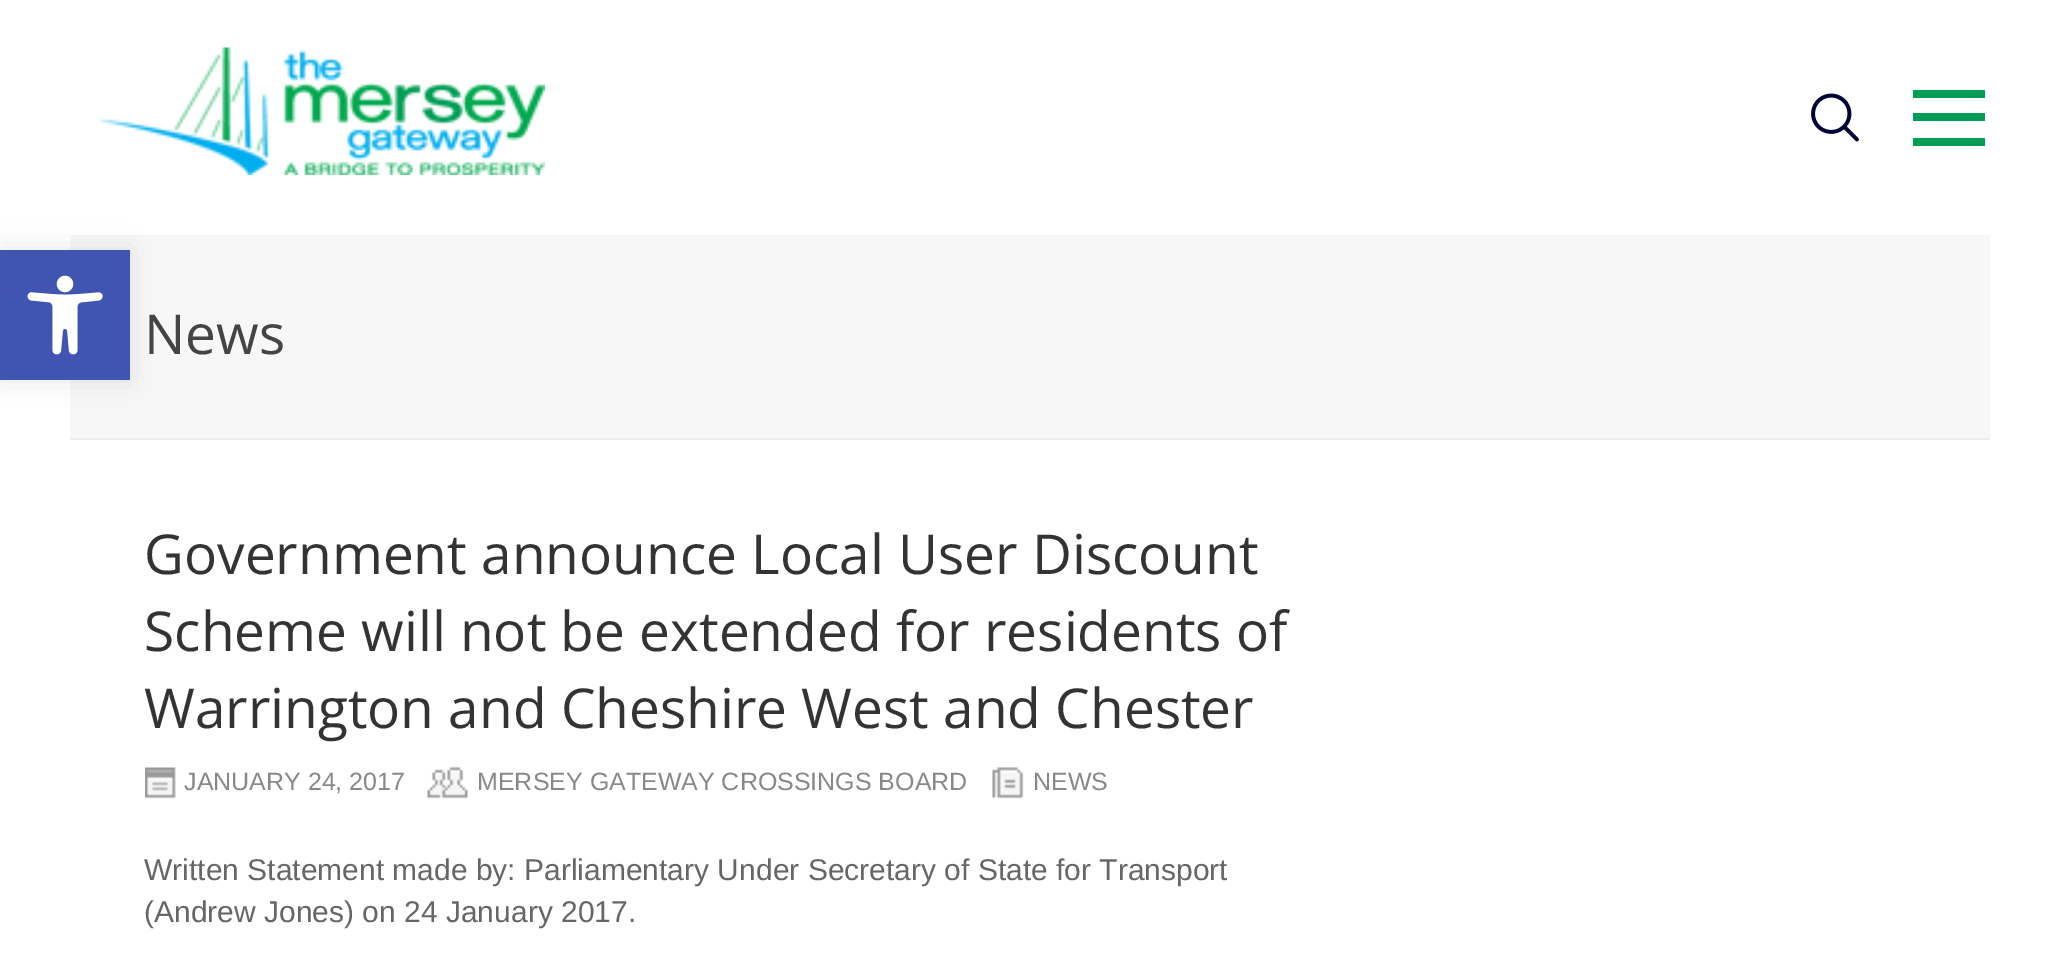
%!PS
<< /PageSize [2056 972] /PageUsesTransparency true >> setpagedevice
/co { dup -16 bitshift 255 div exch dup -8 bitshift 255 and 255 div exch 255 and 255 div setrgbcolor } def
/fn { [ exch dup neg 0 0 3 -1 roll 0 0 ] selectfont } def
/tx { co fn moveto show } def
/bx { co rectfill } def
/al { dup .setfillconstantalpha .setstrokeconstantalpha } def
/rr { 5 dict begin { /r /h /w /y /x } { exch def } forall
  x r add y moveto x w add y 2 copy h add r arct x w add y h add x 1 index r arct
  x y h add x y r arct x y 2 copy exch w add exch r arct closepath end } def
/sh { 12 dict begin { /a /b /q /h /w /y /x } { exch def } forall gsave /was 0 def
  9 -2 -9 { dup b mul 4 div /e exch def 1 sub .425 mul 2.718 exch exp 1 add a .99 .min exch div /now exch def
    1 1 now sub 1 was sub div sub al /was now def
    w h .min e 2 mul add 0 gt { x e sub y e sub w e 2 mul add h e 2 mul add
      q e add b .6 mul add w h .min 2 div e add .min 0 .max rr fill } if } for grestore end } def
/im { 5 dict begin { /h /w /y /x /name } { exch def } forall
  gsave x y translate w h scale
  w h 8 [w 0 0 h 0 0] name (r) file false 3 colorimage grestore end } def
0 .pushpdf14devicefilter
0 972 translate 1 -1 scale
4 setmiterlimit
0 0 2056 972 16#FFFFFF bx
(media/1.raw) 100 47 445 128 im
(media/2.raw) 1811 93 48 49 im
1913 90 72 8 16#009D57 bx
1913 113 72 8 16#009D57 bx
1913 138 72 8 16#009D57 bx
70 235 1920 203 16#F7F7F7 bx
16#000000 co
0 250 130 130 0 12.5 .1 sh
0 250 130 130 16#4054B2 bx
(media/3.raw) 27 275 76 80 im
70 438 1920 2 16#EDEDED bx
(media/4.raw) 145 767 31 32 im
(media/5.raw) 427 766 41 33 im
(media/6.raw) 992 766 32 33 im
(News) 144 354 /OpenSans-Regular 55 16#444444 tx
(Government announce Local User Discount) 144 574 /OpenSans-Regular 55 16#333333 tx
(Scheme will not be extended for residents of) 144 651 /OpenSans-Regular 55 16#333333 tx
(Warrington and Cheshire West and Chester) 144 728 /OpenSans-Regular 55 16#333333 tx
(JANUARY 24, 2017) 184 790 /LiberationSans-Regular 25 16#888888 tx
(MERSEY GATEWAY CROSSINGS BOARD) 477 790 /LiberationSans-Regular 25 16#888888 tx
(NEWS) 1033 790 /LiberationSans-Regular 25 16#888888 tx
(Written Statement made by: Parliamentary Under Secretary of State for Transport) 144 880 /LiberationSans-Regular 30 16#666666 tx
(\(Andrew Jones\) on 24 January 2017.) 144 922 /LiberationSans-Regular 30 16#666666 tx
.poppdf14devicefilter showpage
